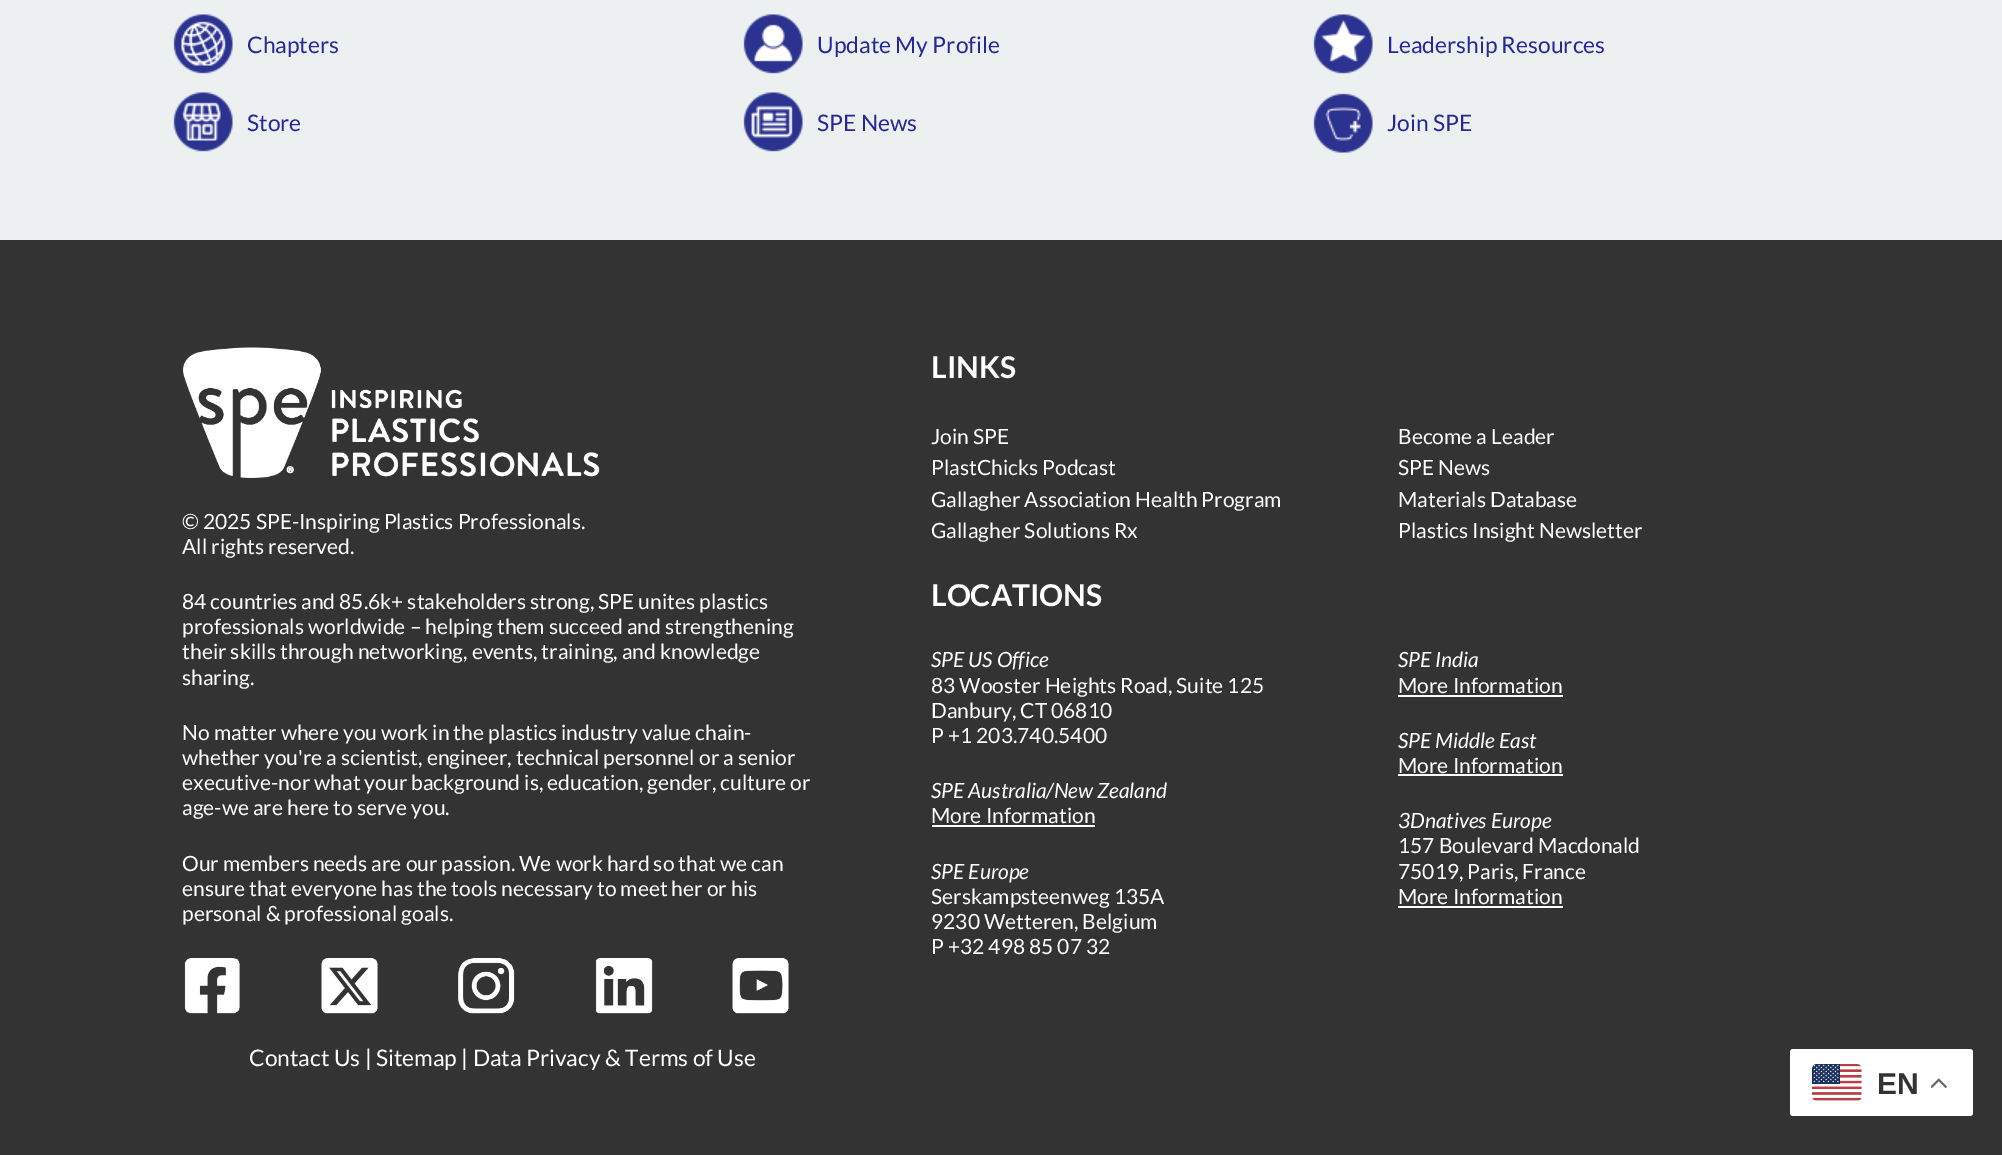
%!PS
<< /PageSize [2002 1155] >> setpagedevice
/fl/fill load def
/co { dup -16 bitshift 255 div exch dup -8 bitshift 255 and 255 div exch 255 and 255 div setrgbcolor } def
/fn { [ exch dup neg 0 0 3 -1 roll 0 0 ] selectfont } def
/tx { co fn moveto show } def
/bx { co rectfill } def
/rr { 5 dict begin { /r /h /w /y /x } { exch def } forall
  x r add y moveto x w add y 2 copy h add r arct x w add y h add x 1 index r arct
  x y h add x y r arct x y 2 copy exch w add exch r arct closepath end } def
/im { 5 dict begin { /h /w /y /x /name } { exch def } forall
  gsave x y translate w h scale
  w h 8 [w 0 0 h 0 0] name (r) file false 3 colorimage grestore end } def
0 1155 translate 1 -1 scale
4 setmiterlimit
0 0 2002 1155 16#ECF0F1 bx
(media/1.raw) 173 14 60 60 im
(media/2.raw) 743 14 60 60 im
(media/3.raw) 1313 14 60 60 im
(media/4.raw) 173 92 60 60 im
(media/5.raw) 743 92 60 60 im
(media/6.raw) 1313 93 60 60 im
0 240 2002 915 16#333333 bx
(media/7.raw) 183 347 417 131 im
(media/8.raw) 184 958 56 56 im
(media/9.raw) 321 958 57 56 im
(media/10.raw) 458 958 57 56 im
(media/11.raw) 595 958 58 56 im
(media/12.raw) 732 958 57 56 im
932 825 163 2 16#FFFFFF bx
1398 695 165 2 16#FFFFFF bx
1398 774 165 2 16#FFFFFF bx
1398 906 165 2 16#FFFFFF bx
1790 1049 183 67 3 rr fl
(media/13.raw) 1812 1064 50 37 im
(media/14.raw) 1931 1078 16 10 im
(Chapters) 247 53 /Lato-Regular 22.8 16#252897 tx
(Update My Profile) 817 53 /Lato-Regular 22.8 16#252897 tx
(Leadership Resources) 1387 53 /Lato-Regular 22.8 16#252897 tx
(Store) 247 131 /Lato-Regular 22.8 16#252897 tx
(SPE News) 817 131 /Lato-Regular 22.8 16#252897 tx
(Join SPE) 1387 131 /Lato-Regular 22.8 16#252897 tx
(© 2025 SPE-Inspiring Plastics Professionals.) 182 529 /Lato-Regular 21 16#FFFFFF tx
(All rights reserved.) 182 554 /Lato-Regular 21 16#FFFFFF tx
(84 countries and 85.6k+ stakeholders strong, SPE unites plastics) 182 609 /Lato-Regular 21 16#FFFFFF tx
(professionals worldwide – helping them succeed and strengthening) 182 634 /Lato-Regular 21 16#FFFFFF tx
(their skills through networking, events, training, and knowledge) 182 659 /Lato-Regular 21 16#FFFFFF tx
(sharing.) 182 685 /Lato-Regular 21 16#FFFFFF tx
(No matter where you work in the plastics industry value chain-) 182 740 /Lato-Regular 21 16#FFFFFF tx
(whether you're a scientist, engineer, technical personnel or a senior) 182 765 /Lato-Regular 21 16#FFFFFF tx
(executive-nor what your background is, education, gender, culture or) 182 790 /Lato-Regular 21 16#FFFFFF tx
(age-we are here to serve you.) 182 815 /Lato-Regular 21 16#FFFFFF tx
(Our members needs are our passion. We work hard so that we can) 182 871 /Lato-Regular 21 16#FFFFFF tx
(ensure that everyone has the tools necessary to meet her or his) 182 896 /Lato-Regular 21 16#FFFFFF tx
(personal & professional goals.) 182 921 /Lato-Regular 21 16#FFFFFF tx
(Contact Us | Sitemap | Data Privacy & Terms of Use) 249 1066 /Lato-Regular 22.8 16#FFFFFF tx
(LINKS) 931 378 /Lato-Bold 30 16#FFFFFF tx
(Join SPE) 931 444 /Lato-Regular 21 16#FFFFFF tx
(PlastChicks Podcast) 931 475 /Lato-Regular 21 16#FFFFFF tx
(Gallagher Association Health Program) 931 507 /Lato-Regular 21 16#FFFFFF tx
(Gallagher Solutions Rx) 931 538 /Lato-Regular 21 16#FFFFFF tx
(Become a Leader) 1398 444 /Lato-Regular 21 16#FFFFFF tx
(SPE News) 1398 475 /Lato-Regular 21 16#FFFFFF tx
(Materials Database) 1398 507 /Lato-Regular 21 16#FFFFFF tx
(Plastics Insight Newsletter) 1398 538 /Lato-Regular 21 16#FFFFFF tx
(LOCATIONS) 931 606 /Lato-Bold 30 16#FFFFFF tx
(SPE US Office) 931 667 /Lato-Italic 21 16#FFFFFF tx
(83 Wooster Heights Road, Suite 125) 931 693 /Lato-Regular 21 16#FFFFFF tx
(Danbury, CT 06810) 931 718 /Lato-Regular 21 16#FFFFFF tx
(P +1 203.740.5400) 931 743 /Lato-Regular 21 16#FFFFFF tx
(SPE Australia/New Zealand) 931 798 /Lato-Italic 21 16#FFFFFF tx
(More Information) 931 823 /Lato-Regular 21 16#FFFFFF tx
(SPE Europe) 931 879 /Lato-Italic 21 16#FFFFFF tx
(Serskampsteenweg 135A) 931 904 /Lato-Regular 21 16#FFFFFF tx
(9230 Wetteren, Belgium) 931 929 /Lato-Regular 21 16#FFFFFF tx
(P +32 498 85 07 32) 931 954 /Lato-Regular 21 16#FFFFFF tx
(SPE India) 1398 667 /Lato-Italic 21 16#FFFFFF tx
(More Information) 1398 693 /Lato-Regular 21 16#FFFFFF tx
(SPE Middle East) 1398 748 /Lato-Italic 21 16#FFFFFF tx
(More Information) 1398 773 /Lato-Regular 21 16#FFFFFF tx
(3Dnatives Europe) 1398 828 /Lato-Italic 21 16#FFFFFF tx
(157 Boulevard Macdonald) 1398 853 /Lato-Regular 21 16#FFFFFF tx
(75019, Paris, France) 1398 879 /Lato-Regular 21 16#FFFFFF tx
(More Information) 1398 904 /Lato-Regular 21 16#FFFFFF tx
(EN) 1877 1094 /LiberationSans-Bold 30 16#333333 tx
showpage
